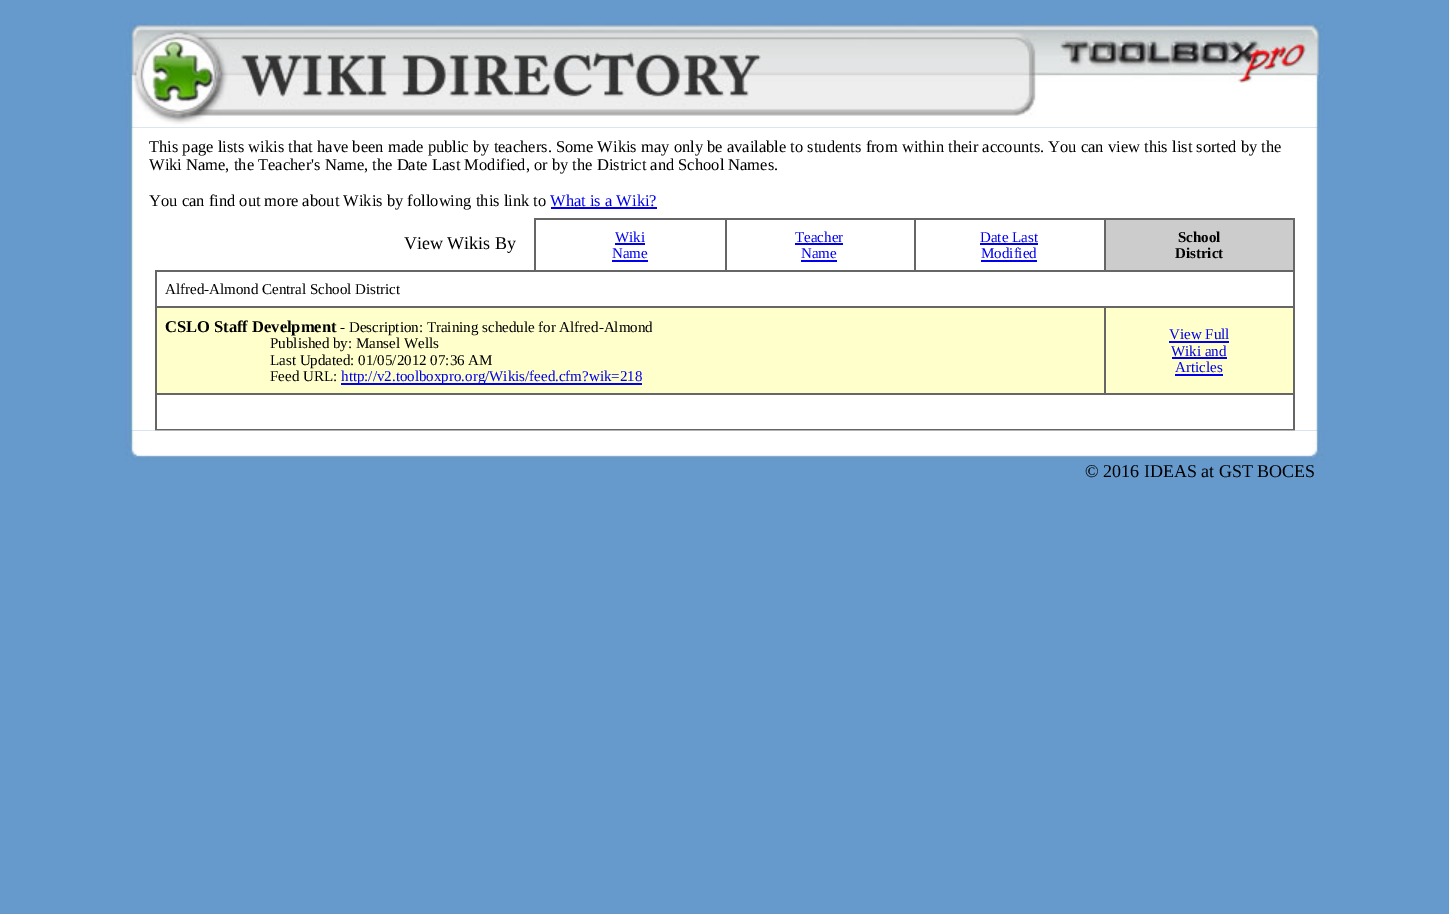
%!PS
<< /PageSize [1449 914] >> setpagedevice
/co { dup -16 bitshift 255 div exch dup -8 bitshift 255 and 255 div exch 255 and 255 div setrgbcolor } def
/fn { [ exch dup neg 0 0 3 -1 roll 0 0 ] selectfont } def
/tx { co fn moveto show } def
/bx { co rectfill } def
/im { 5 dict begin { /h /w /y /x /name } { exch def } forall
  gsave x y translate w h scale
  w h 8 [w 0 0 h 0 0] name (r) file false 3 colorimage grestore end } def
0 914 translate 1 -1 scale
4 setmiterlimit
0 0 1449 914 16#669ACC bx
(media/1.raw) 124 22 1201 106 im
(media/2.raw) 124 127 1195 304 im
551 207 106 2 16#0000EE bx
1104 218 191 2 16#666666 bx
155 270 1140 2 16#666666 bx
1104 218 2 54 16#666666 bx
914 218 192 2 16#666666 bx
914 218 2 54 16#666666 bx
725 218 190 2 16#666666 bx
725 218 2 54 16#666666 bx
534 218 192 2 16#666666 bx
534 218 2 54 16#666666 bx
615 243 30 2 16#0000EE bx
612 260 36 2 16#0000EE bx
795 243 48 2 16#0000EE bx
801 260 36 2 16#0000EE bx
980 243 58 2 16#0000EE bx
981 260 56 2 16#0000EE bx
1106 220 187 50 16#CCCCCC bx
1104 306 191 2 16#666666 bx
155 393 1140 2 16#666666 bx
1293 393 2 38 16#666666 bx
1293 306 2 89 16#666666 bx
1293 270 2 38 16#666666 bx
1293 218 2 54 16#666666 bx
1104 306 2 89 16#666666 bx
155 306 951 2 16#666666 bx
155 429 1140 2 16#666666 bx
155 393 2 38 16#666666 bx
155 306 2 89 16#666666 bx
155 270 2 38 16#666666 bx
157 308 947 85 16#FFFFCC bx
341 383 301 2 16#0000EE bx
1106 308 187 85 16#FFFFCC bx
1169 341 60 2 16#0000EE bx
1172 357 55 2 16#0000EE bx
1175 374 48 2 16#0000EE bx
(media/3.raw) 124 430 1201 31 im
(This page lists wikis that have been made public by teachers. Some Wikis may only be available to students from within their accounts. You can view this list sorted by the) 149 152 /LiberationSerif-Regular 16.5 16#000000 tx
(Wiki Name, the Teacher's Name, the Date Last Modified, or by the District and School Names.) 149 170 /LiberationSerif-Regular 16.5 16#000000 tx
(You can find out more about Wikis by following this link to) 149 206 /LiberationSerif-Regular 16.5 16#000000 tx
(What is a Wiki?) 550 206 /LiberationSerif-Regular 16.5 16#0000EE tx
(View Wikis By) 404 249 /LiberationSerif-Regular 18 16#000000 tx
(Wiki) 615 242 /LiberationSerif-Regular 15 16#0000EE tx
(Name) 612 258 /LiberationSerif-Regular 15 16#0000EE tx
(Teacher) 795 242 /LiberationSerif-Regular 15 16#0000EE tx
(Name) 801 258 /LiberationSerif-Regular 15 16#0000EE tx
(Date Last) 980 242 /LiberationSerif-Regular 15 16#0000EE tx
(Modified) 981 258 /LiberationSerif-Regular 15 16#0000EE tx
(School) 1178 242 /LiberationSerif-Bold 15 16#000000 tx
(District) 1175 258 /LiberationSerif-Bold 15 16#000000 tx
(Alfred-Almond Central School District) 165 294 /LiberationSerif-Regular 15 16#000000 tx
(CSLO Staff Develpment) 165 332 /LiberationSerif-Bold 16.5 16#000000 tx
(- Description: Training schedule for Alfred-Almond) 340 332 /LiberationSerif-Regular 15 16#000000 tx
(Published by: Mansel Wells) 270 348 /LiberationSerif-Regular 15 16#000000 tx
(Last Updated: 01/05/2012 07:36 AM) 270 365 /LiberationSerif-Regular 15 16#000000 tx
(Feed URL:) 270 381 /LiberationSerif-Regular 15 16#000000 tx
(http://v2.toolboxpro.org/Wikis/feed.cfm?wik=218) 341 381 /LiberationSerif-Regular 15 16#0000EE tx
(View Full) 1169 339 /LiberationSerif-Regular 15 16#0000EE tx
(Wiki and) 1171 356 /LiberationSerif-Regular 15 16#0000EE tx
(Articles) 1175 372 /LiberationSerif-Regular 15 16#0000EE tx
(© 2016 IDEAS at GST BOCES) 1085 477 /LiberationSerif-Regular 18 16#000000 tx
showpage
